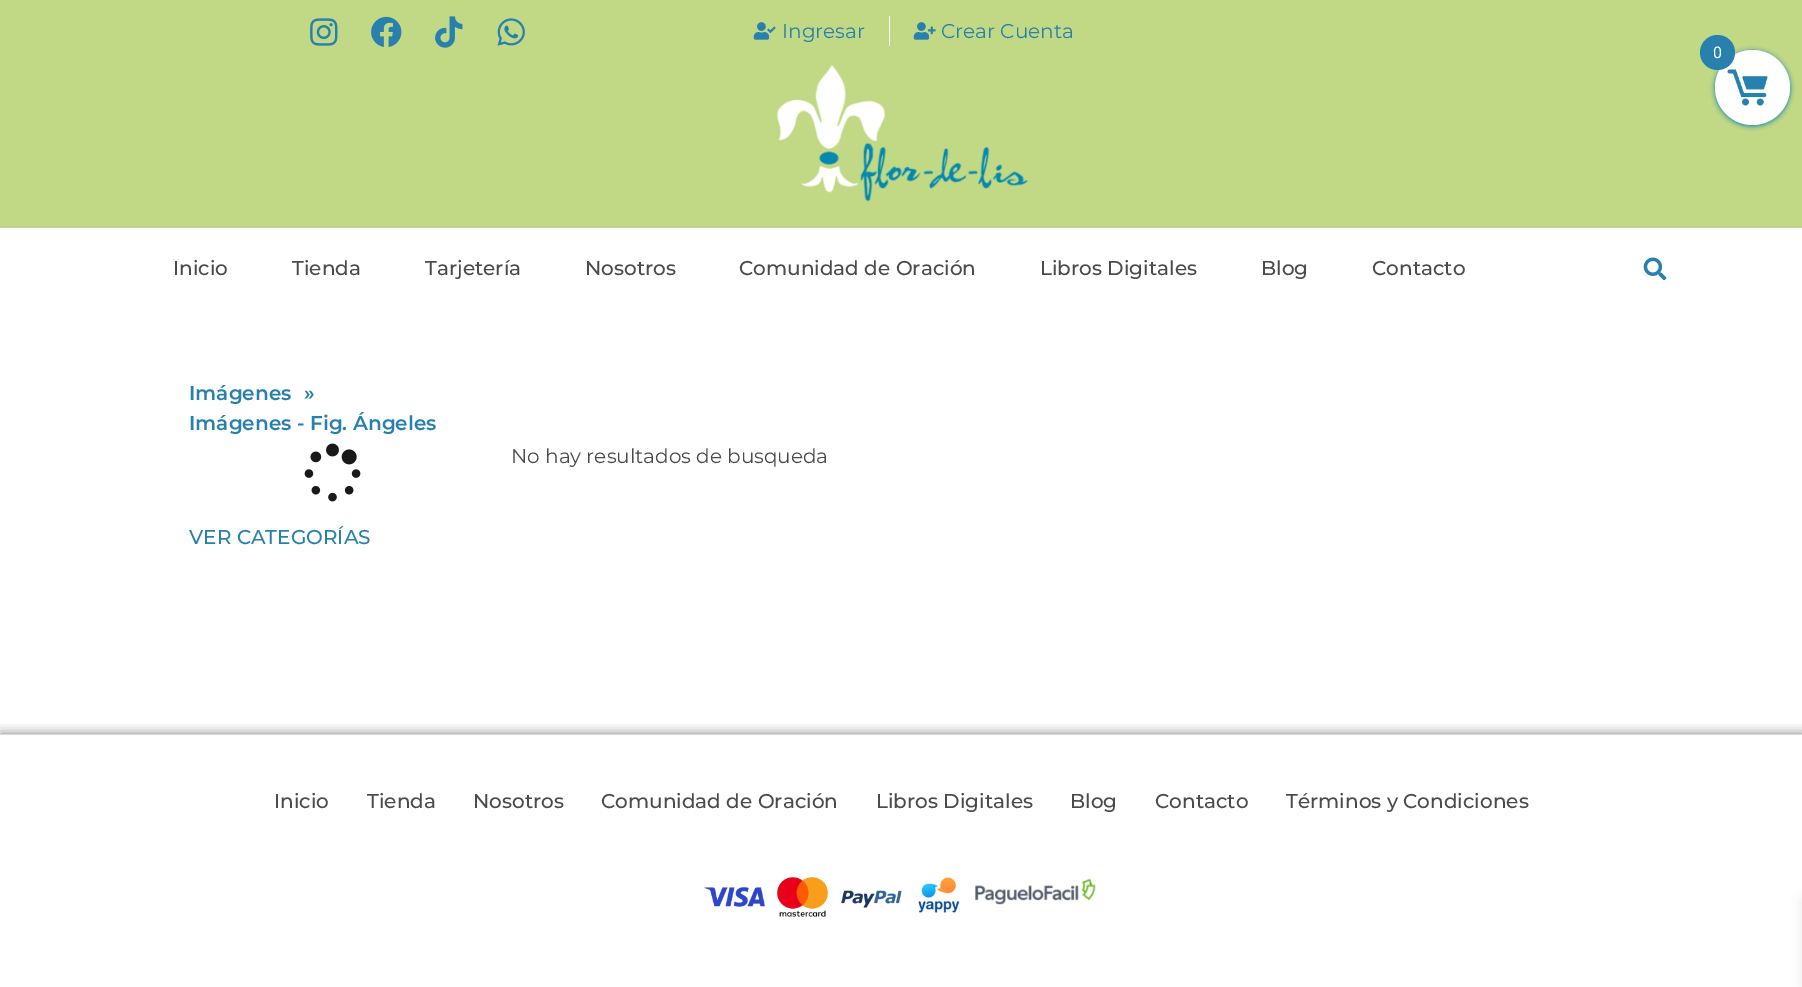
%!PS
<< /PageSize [1802 987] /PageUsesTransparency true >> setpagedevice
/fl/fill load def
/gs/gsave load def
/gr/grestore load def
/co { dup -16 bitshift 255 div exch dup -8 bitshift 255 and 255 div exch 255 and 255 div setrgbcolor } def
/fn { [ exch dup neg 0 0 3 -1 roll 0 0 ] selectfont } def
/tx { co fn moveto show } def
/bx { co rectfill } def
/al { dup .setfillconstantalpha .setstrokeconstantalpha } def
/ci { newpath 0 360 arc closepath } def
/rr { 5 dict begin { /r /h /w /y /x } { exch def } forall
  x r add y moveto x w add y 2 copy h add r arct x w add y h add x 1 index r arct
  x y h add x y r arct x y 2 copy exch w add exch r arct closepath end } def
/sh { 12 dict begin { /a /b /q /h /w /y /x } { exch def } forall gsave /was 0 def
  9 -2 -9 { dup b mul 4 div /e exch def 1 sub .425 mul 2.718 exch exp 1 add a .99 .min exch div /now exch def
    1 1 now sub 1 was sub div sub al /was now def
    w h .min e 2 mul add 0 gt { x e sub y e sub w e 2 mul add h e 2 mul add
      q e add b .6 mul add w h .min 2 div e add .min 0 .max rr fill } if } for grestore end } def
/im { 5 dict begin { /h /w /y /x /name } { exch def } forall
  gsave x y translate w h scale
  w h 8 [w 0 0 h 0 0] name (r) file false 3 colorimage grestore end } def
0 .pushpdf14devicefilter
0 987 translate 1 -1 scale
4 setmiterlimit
0 0 1802 987 16#FFFFFF bx
0 0 1802 228 16#C1D884 bx
(media/1.raw) 310 18 28 28 im
(media/2.raw) 371 16 31 31 im
(media/3.raw) 435 16 28 32 im
(media/4.raw) 497 18 28 28 im
(media/5.raw) 753 22 23 18 im
889 16 1 30 16#FFFFFF bx
(media/6.raw) 913 22 23 18 im
0 226 1802 1 16#BBCC8E bx
(media/7.raw) 776 64 252 138 im
(media/8.raw) 1643 257 24 24 im
16#0085AF co
1715 51 75 75 37.5 2.5 1 sh
16#FFFFFF co
1752.5 87.5 37.5 ci fl
(media/9.raw) 1727 69 41 37 im
16#2880AE co
1717.5 52.5 17.5 ci fl
16#000000 co
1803 900 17 86 0 6 .1 sh
(media/10.raw) 304 443 57 59 im
gs
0 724 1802 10 rectclip
0 734 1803 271 0 6 .5 sh
gr
0 734 1802 1 16#DBDBDB bx
(media/11.raw) 704 887 61 20 im
(media/12.raw) 777 877 51 40 im
(media/13.raw) 841 890 61 18 im
(media/14.raw) 918 877 42 36 im
(media/15.raw) 975 878 121 27 im
(Ingresar) 782 38 /Montserrat-Regular 20 16#2880AE tx
(Crear Cuenta) 941 38 /Montserrat-Regular 20 16#2880AE tx
(Inicio) 173 275 /Montserrat-Medium 20 16#4B4B4B tx
(Tienda) 292 275 /Montserrat-Medium 20 16#4B4B4B tx
(Tarjetería) 425 275 /Montserrat-Medium 20 16#4B4B4B tx
(Nosotros) 585 275 /Montserrat-Medium 20 16#4B4B4B tx
(Comunidad de Oración) 739 275 /Montserrat-Medium 20 16#4B4B4B tx
(Libros Digitales) 1040 275 /Montserrat-Medium 20 16#4B4B4B tx
(Blog) 1261 275 /Montserrat-Medium 20 16#4B4B4B tx
(Contacto) 1372 275 /Montserrat-Medium 20 16#4B4B4B tx
(0) 1713 58 /Roboto-Regular 16 16#FFFFFF tx
(Imágenes) 189 400 /Montserrat-SemiBold 20 16#2880AE tx
(») 304 400 /Montserrat-SemiBold 20 16#2880AE tx
(Imágenes - Fig. Ángeles) 189 430 /Montserrat-SemiBold 20 16#2880AE tx
(VER CATEGORÍAS) 189 544 /Montserrat-Medium 20 16#2880AE tx
(No hay resultados de busqueda) 511 463 /Montserrat-Regular 20 16#4B4B4B tx
(Inicio) 274 808 /Montserrat-Medium 20 16#4B4B4B tx
(Tienda) 367 808 /Montserrat-Medium 20 16#4B4B4B tx
(Nosotros) 473 808 /Montserrat-Medium 20 16#4B4B4B tx
(Comunidad de Oración) 601 808 /Montserrat-Medium 20 16#4B4B4B tx
(Libros Digitales) 876 808 /Montserrat-Medium 20 16#4B4B4B tx
(Blog) 1070 808 /Montserrat-Medium 20 16#4B4B4B tx
(Contacto) 1155 808 /Montserrat-Medium 20 16#4B4B4B tx
(Términos y Condiciones) 1286 808 /Montserrat-Medium 20 16#4B4B4B tx
.poppdf14devicefilter showpage
